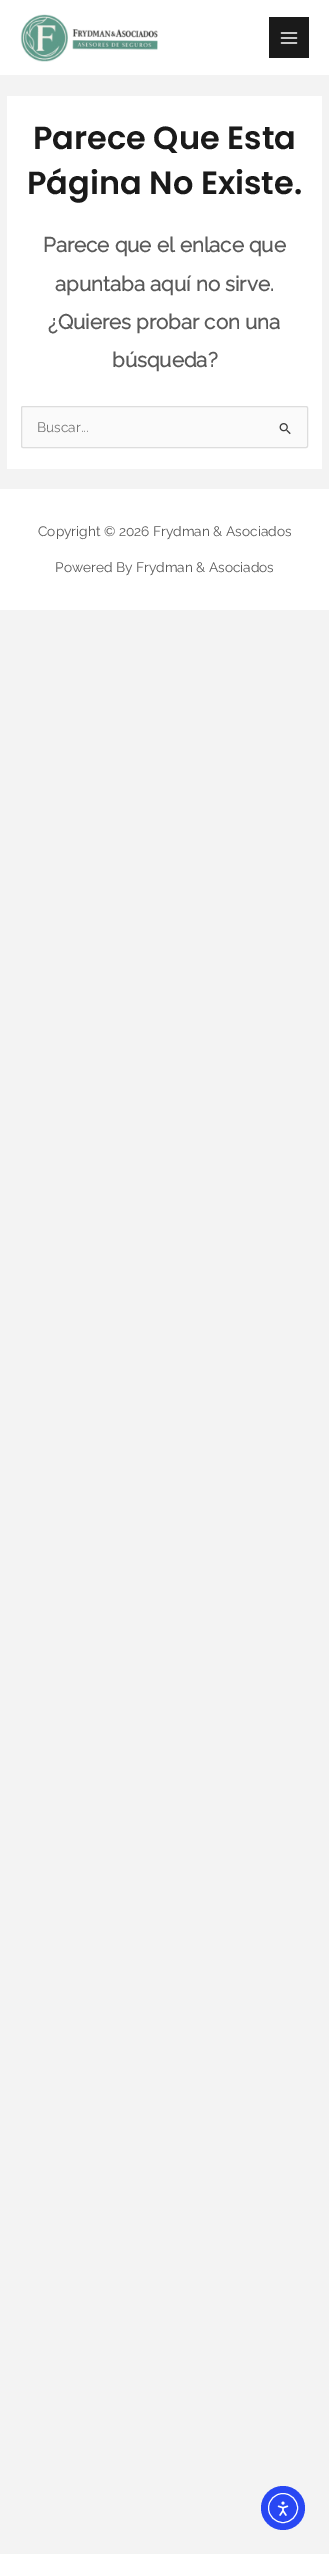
%!PS
<< /PageSize [329 2554] >> setpagedevice
/fl/fill load def
/st/stroke load def
/gs/gsave load def
/gr/grestore load def
/co { dup -16 bitshift 255 div exch dup -8 bitshift 255 and 255 div exch 255 and 255 div setrgbcolor } def
/fn { [ exch dup neg 0 0 3 -1 roll 0 0 ] selectfont } def
/tx { co fn moveto show } def
/bx { co rectfill } def
/ci { newpath 0 360 arc closepath } def
/rr { 5 dict begin { /r /h /w /y /x } { exch def } forall
  x r add y moveto x w add y 2 copy h add r arct x w add y h add x 1 index r arct
  x y h add x y r arct x y 2 copy exch w add exch r arct closepath end } def
/im { 5 dict begin { /h /w /y /x /name } { exch def } forall
  gsave x y translate w h scale
  w h 8 [w 0 0 h 0 0] name (r) file false 3 colorimage grestore end } def
0 2554 translate 1 -1 scale
4 setmiterlimit
0 0 329 2554 16#F3F3F3 bx
0 0 329 75 16#FFFFFF bx
(media/1.raw) 20 14 138 48 im
269 17 40 41 16#1A1A1A bx
(media/2.raw) 280 32 18 12 im
7 96 315 373 16#FFFFFF bx
16#FAFAFA co
21.5 406.5 286 41 1.5 rr gs fl gr
16#DDDDDD co
st
(media/3.raw) 279 423 12 12 im
0 489 329 121 16#FFFFFF bx
16#2847F3 co
283 2508 22 ci fl
16#FFFFFF co
283 2508 14.5 ci st
(media/4.raw) 277 2501 12 15 im
(Parece Que Esta) 33 149 /Poppins-SemiBold 32 16#1A1A1A tx
(Página No Existe.) 27 194 /Poppins-SemiBold 32 16#1A1A1A tx
(Parece que el enlace que) 43 252 /Raleway-Bold 20.5 16#5A5A5A tx
(apuntaba aquí no sirve.) 55 291 /Raleway-Bold 20.5 16#5A5A5A tx
(¿Quieres probar con una) 48 329 /Raleway-Bold 20.5 16#5A5A5A tx
(búsqueda?) 112 367 /Raleway-Bold 20.5 16#5A5A5A tx
(Buscar...) 37 432 /Raleway-Thin 13.7 16#757575 tx
(Copyright © 2026 Frydman & Asociados) 38 536 /Raleway-Thin 13.7 16#5A5A5A tx
(Powered By Frydman & Asociados) 55 572 /Raleway-Thin 13.7 16#5A5A5A tx
showpage
